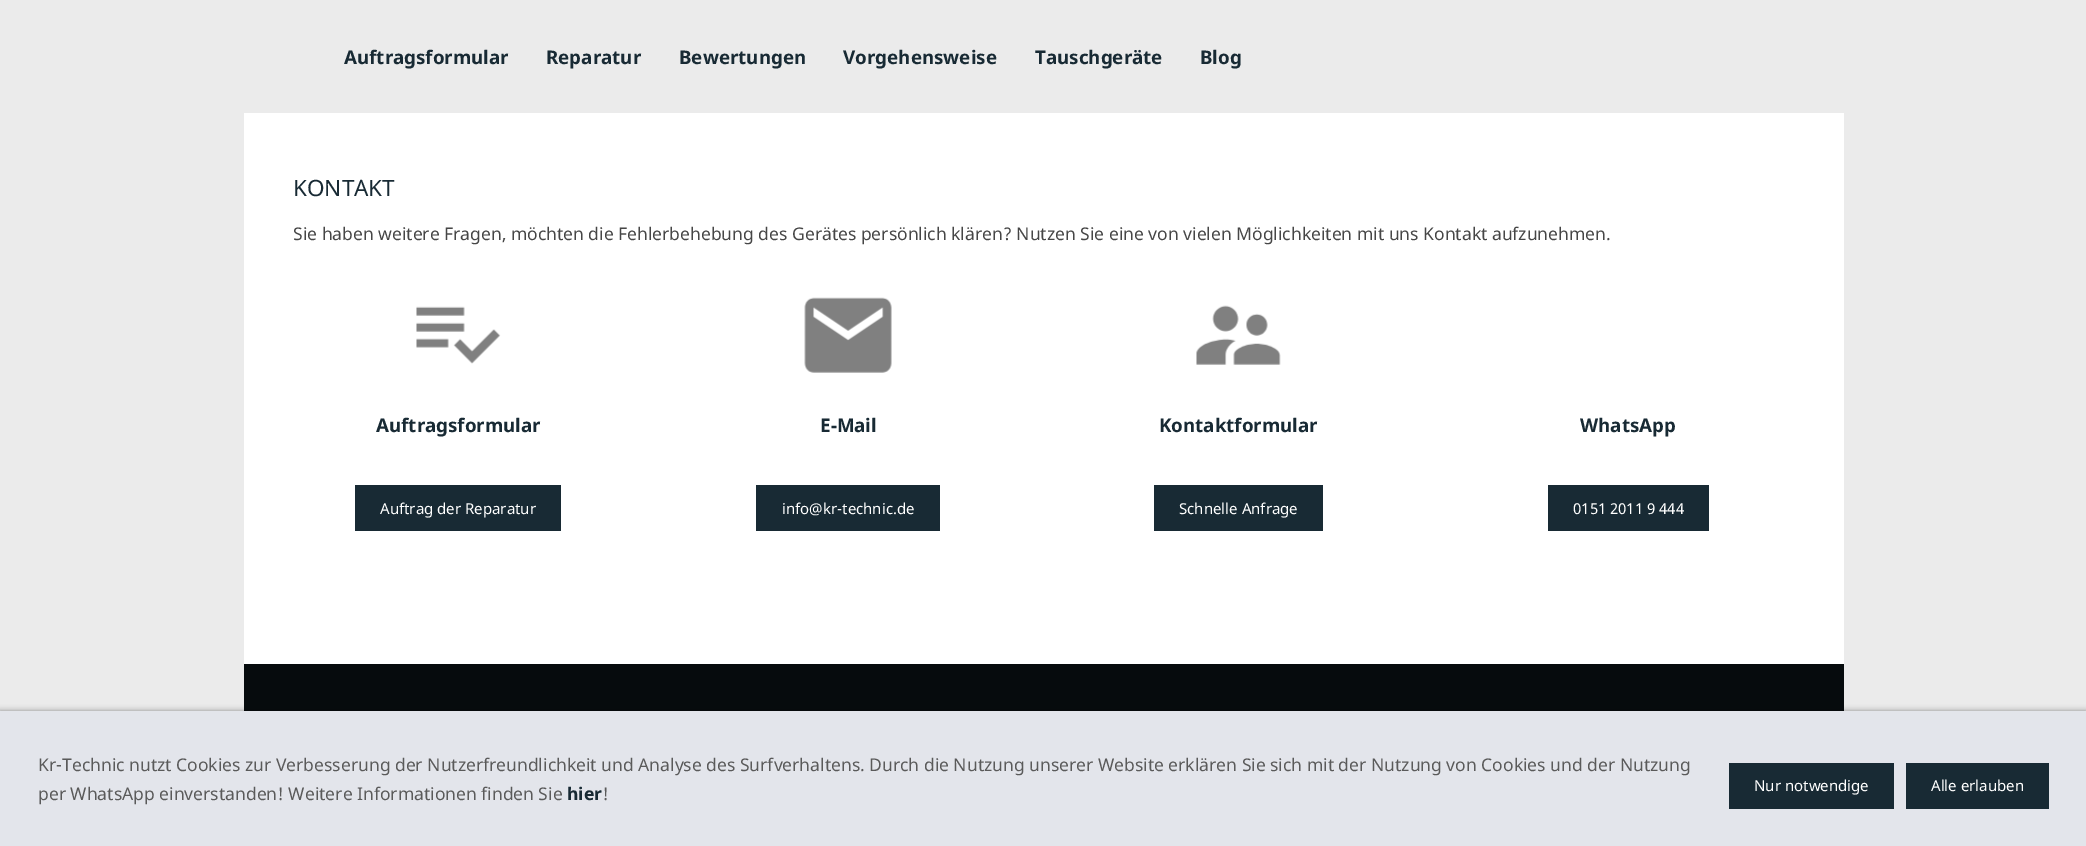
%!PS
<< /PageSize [2086 846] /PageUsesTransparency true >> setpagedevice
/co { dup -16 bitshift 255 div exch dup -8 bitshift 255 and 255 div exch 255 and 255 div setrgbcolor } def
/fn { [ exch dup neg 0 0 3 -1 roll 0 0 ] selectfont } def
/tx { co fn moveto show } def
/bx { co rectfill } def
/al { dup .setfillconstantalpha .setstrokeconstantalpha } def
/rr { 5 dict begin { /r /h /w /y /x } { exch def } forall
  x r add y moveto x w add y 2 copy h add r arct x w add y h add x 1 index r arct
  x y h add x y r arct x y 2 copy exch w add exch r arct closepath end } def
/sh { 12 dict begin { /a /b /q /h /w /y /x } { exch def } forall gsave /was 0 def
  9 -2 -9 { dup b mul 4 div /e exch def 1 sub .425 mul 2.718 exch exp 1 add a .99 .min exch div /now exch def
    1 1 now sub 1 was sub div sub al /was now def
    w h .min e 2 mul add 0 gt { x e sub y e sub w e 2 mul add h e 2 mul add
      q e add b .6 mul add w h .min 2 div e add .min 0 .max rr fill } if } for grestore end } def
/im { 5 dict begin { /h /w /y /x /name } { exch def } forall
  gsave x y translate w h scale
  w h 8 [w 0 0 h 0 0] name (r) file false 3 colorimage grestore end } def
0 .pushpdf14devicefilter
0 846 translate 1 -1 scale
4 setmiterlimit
0 0 2086 846 16#EBEBEB bx
244 113 1600 551 16#FFFFFF bx
(media/1.raw) 416 306 85 58 im
355 485 206 46 16#182A34 bx
(media/2.raw) 804 297 88 76 im
756 485 184 46 16#182A34 bx
(media/3.raw) 1196 305 85 60 im
1154 485 169 46 16#182A34 bx
1548 485 161 46 16#182A34 bx
244 664 1600 47 16#060B0D bx
16#000000 co
0 711 2086 135 0 3 .4 sh
0 711 2086 135 16#E3E5EB bx
1729 763 165 46 16#182A34 bx
1906 763 143 46 16#182A34 bx
(Auftragsformular) 344 64 /NotoSans-Bold 18.75 16#182A34 tx
(Reparatur) 546 64 /NotoSans-Bold 18.75 16#182A34 tx
(Bewertungen) 679 64 /NotoSans-Bold 18.75 16#182A34 tx
(Vorgehensweise) 843 64 /NotoSans-Bold 18.75 16#182A34 tx
(Tauschgeräte) 1035 64 /NotoSans-Bold 18.75 16#182A34 tx
(Blog) 1200 64 /NotoSans-Bold 18.75 16#182A34 tx
(KONTAKT) 293 196 /NotoSans-Regular 22.5 16#182A34 tx
(Sie haben weitere Fragen, möchten die Fehlerbehebung des Gerätes persönlich klären? Nutzen Sie eine von vielen Möglichkeiten mit uns Kontakt aufzunehmen.) 293 240 /NotoSans-Regular 17.5 16#464646 tx
(Auftragsformular) 376 432 /NotoSans-Bold 18.75 16#182A34 tx
(Auftrag der Reparatur) 380 514 /NotoSans-Regular 15 16#FFFFFF tx
(E-Mail) 820 432 /NotoSans-Bold 18.75 16#182A34 tx
(info@kr-technic.de) 782 514 /NotoSans-Regular 15 16#FFFFFF tx
(Kontaktformular) 1159 432 /NotoSans-Bold 18.75 16#182A34 tx
(Schnelle Anfrage) 1179 514 /NotoSans-Regular 15 16#FFFFFF tx
(WhatsApp) 1580 432 /NotoSans-Bold 18.75 16#182A34 tx
(0151 2011 9 444) 1573 514 /NotoSans-Regular 15 16#FFFFFF tx
(Kr-Technic nutzt Cookies zur Verbesserung der Nutzerfreundlichkeit und Analyse des Surfverhaltens. Durch die Nutzung unserer Website erklären Sie sich mit der Nutzung von Cookies und der Nutzung) 38 771 /NotoSans-Regular 17.5 16#5A5A5A tx
(per WhatsApp einverstanden! Weitere Informationen finden Sie) 38 800 /NotoSans-Regular 17.5 16#5A5A5A tx
(hier) 567 800 /NotoSans-Bold 17.5 16#182A34 tx
(!) 602 800 /NotoSans-Regular 17.5 16#5A5A5A tx
(Nur notwendige) 1754 791 /NotoSans-Regular 15 16#FFFFFF tx
(Alle erlauben) 1931 791 /NotoSans-Regular 15 16#FFFFFF tx
.poppdf14devicefilter showpage
